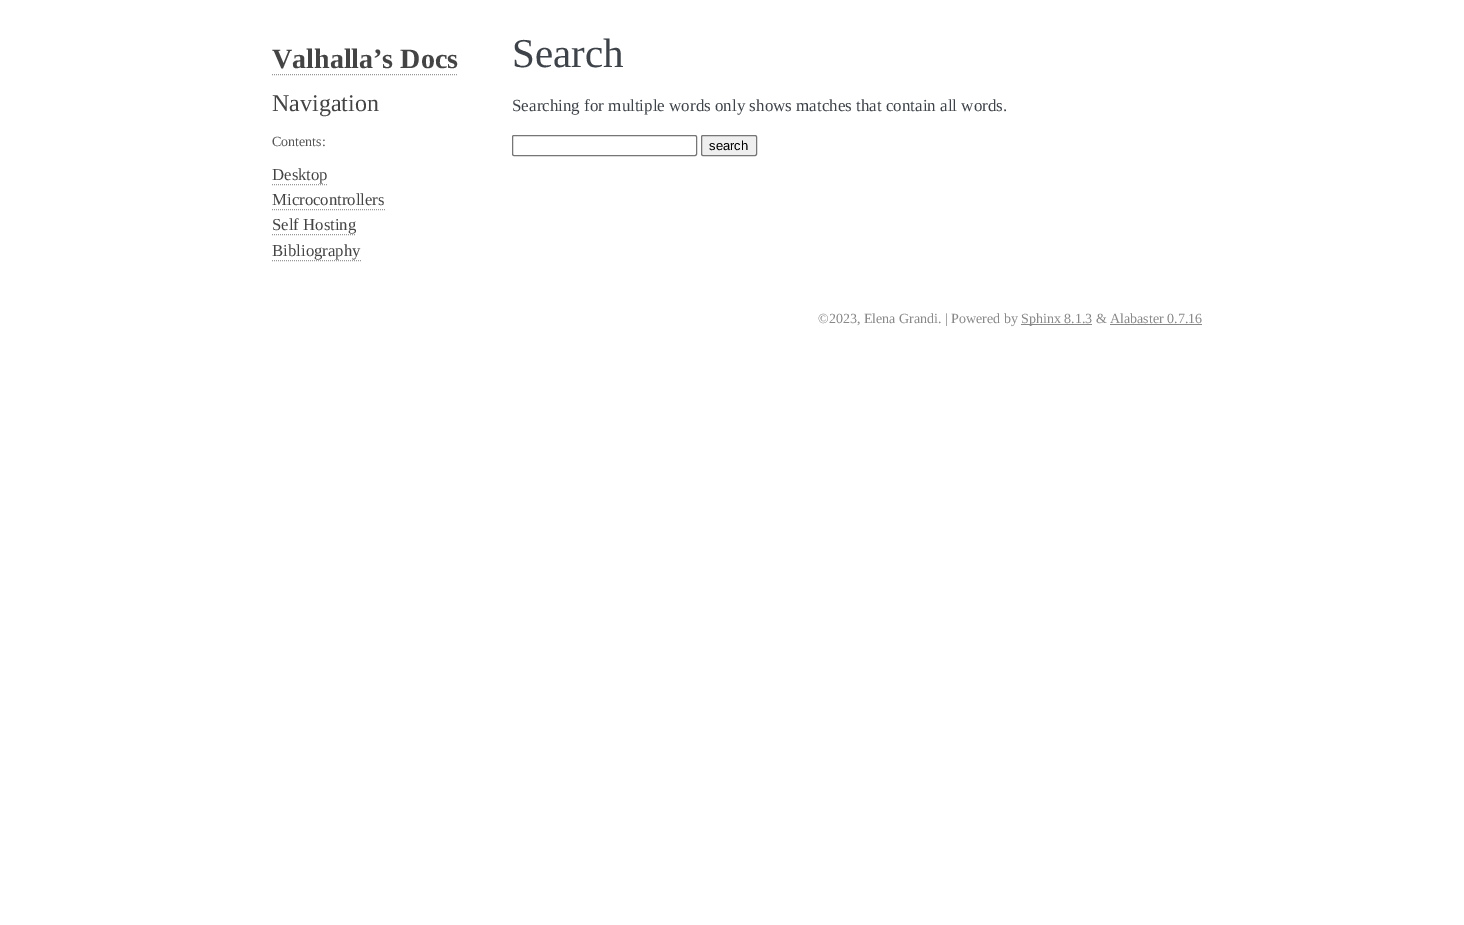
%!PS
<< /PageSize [1464 925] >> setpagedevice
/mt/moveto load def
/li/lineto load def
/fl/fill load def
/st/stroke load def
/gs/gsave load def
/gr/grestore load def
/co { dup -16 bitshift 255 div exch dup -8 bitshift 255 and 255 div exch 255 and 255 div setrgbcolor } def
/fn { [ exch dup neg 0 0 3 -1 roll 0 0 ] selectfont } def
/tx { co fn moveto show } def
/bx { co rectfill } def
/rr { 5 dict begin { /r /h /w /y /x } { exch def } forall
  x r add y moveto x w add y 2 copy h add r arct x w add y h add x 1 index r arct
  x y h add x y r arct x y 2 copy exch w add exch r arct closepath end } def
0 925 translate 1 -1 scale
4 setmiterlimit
0 0 1464 925 16#FFFFFF bx
16#999999 co
[1 1] 0 setdash
272 74.5 mt 458 74.5 li st
272 184.5 mt 328 184.5 li st
272 209.5 mt 385 209.5 li st
272 234.5 mt 356 234.5 li st
272 260.5 mt 361 260.5 li st
16#767676 co
[] 0 setdash
512.5 135.5 184 20 1.5 rr st
16#EFEFEF co
701.5 135.5 55 20 1.5 rr gs fl gr
16#767676 co
st
1021 324 71 1 16#888888 bx
1110 324 92 1 16#888888 bx
(Valhalla’s Docs) 272 68 /LiberationSerif-Bold 28 16#444444 tx
(Navigation) 272 111 /LiberationSerif-Regular 24 16#444444 tx
(Contents:) 272 146 /LiberationSerif-Regular 14 16#555555 tx
(Desktop) 272 180 /LiberationSerif-Regular 16.75 16#444444 tx
(Microcontrollers) 272 205 /LiberationSerif-Regular 16.75 16#444444 tx
(Self Hosting) 272 230 /LiberationSerif-Regular 16.75 16#444444 tx
(Bibliography) 272 256 /LiberationSerif-Regular 16.75 16#444444 tx
(Search) 512 67 /LiberationSerif-Regular 41 16#3E4349 tx
(Searching for multiple words only shows matches that contain all words.) 512 111 /LiberationSerif-Regular 17 16#3E4349 tx
(search) 709 150 /LiberationSans-Regular 13 16#000000 tx
(©2023, Elena Grandi. | Powered by) 818 323 /LiberationSerif-Regular 14 16#888888 tx
(Sphinx 8.1.3 & Alabaster 0.7.16) 1021 323 /LiberationSerif-Regular 14 16#888888 tx
showpage
